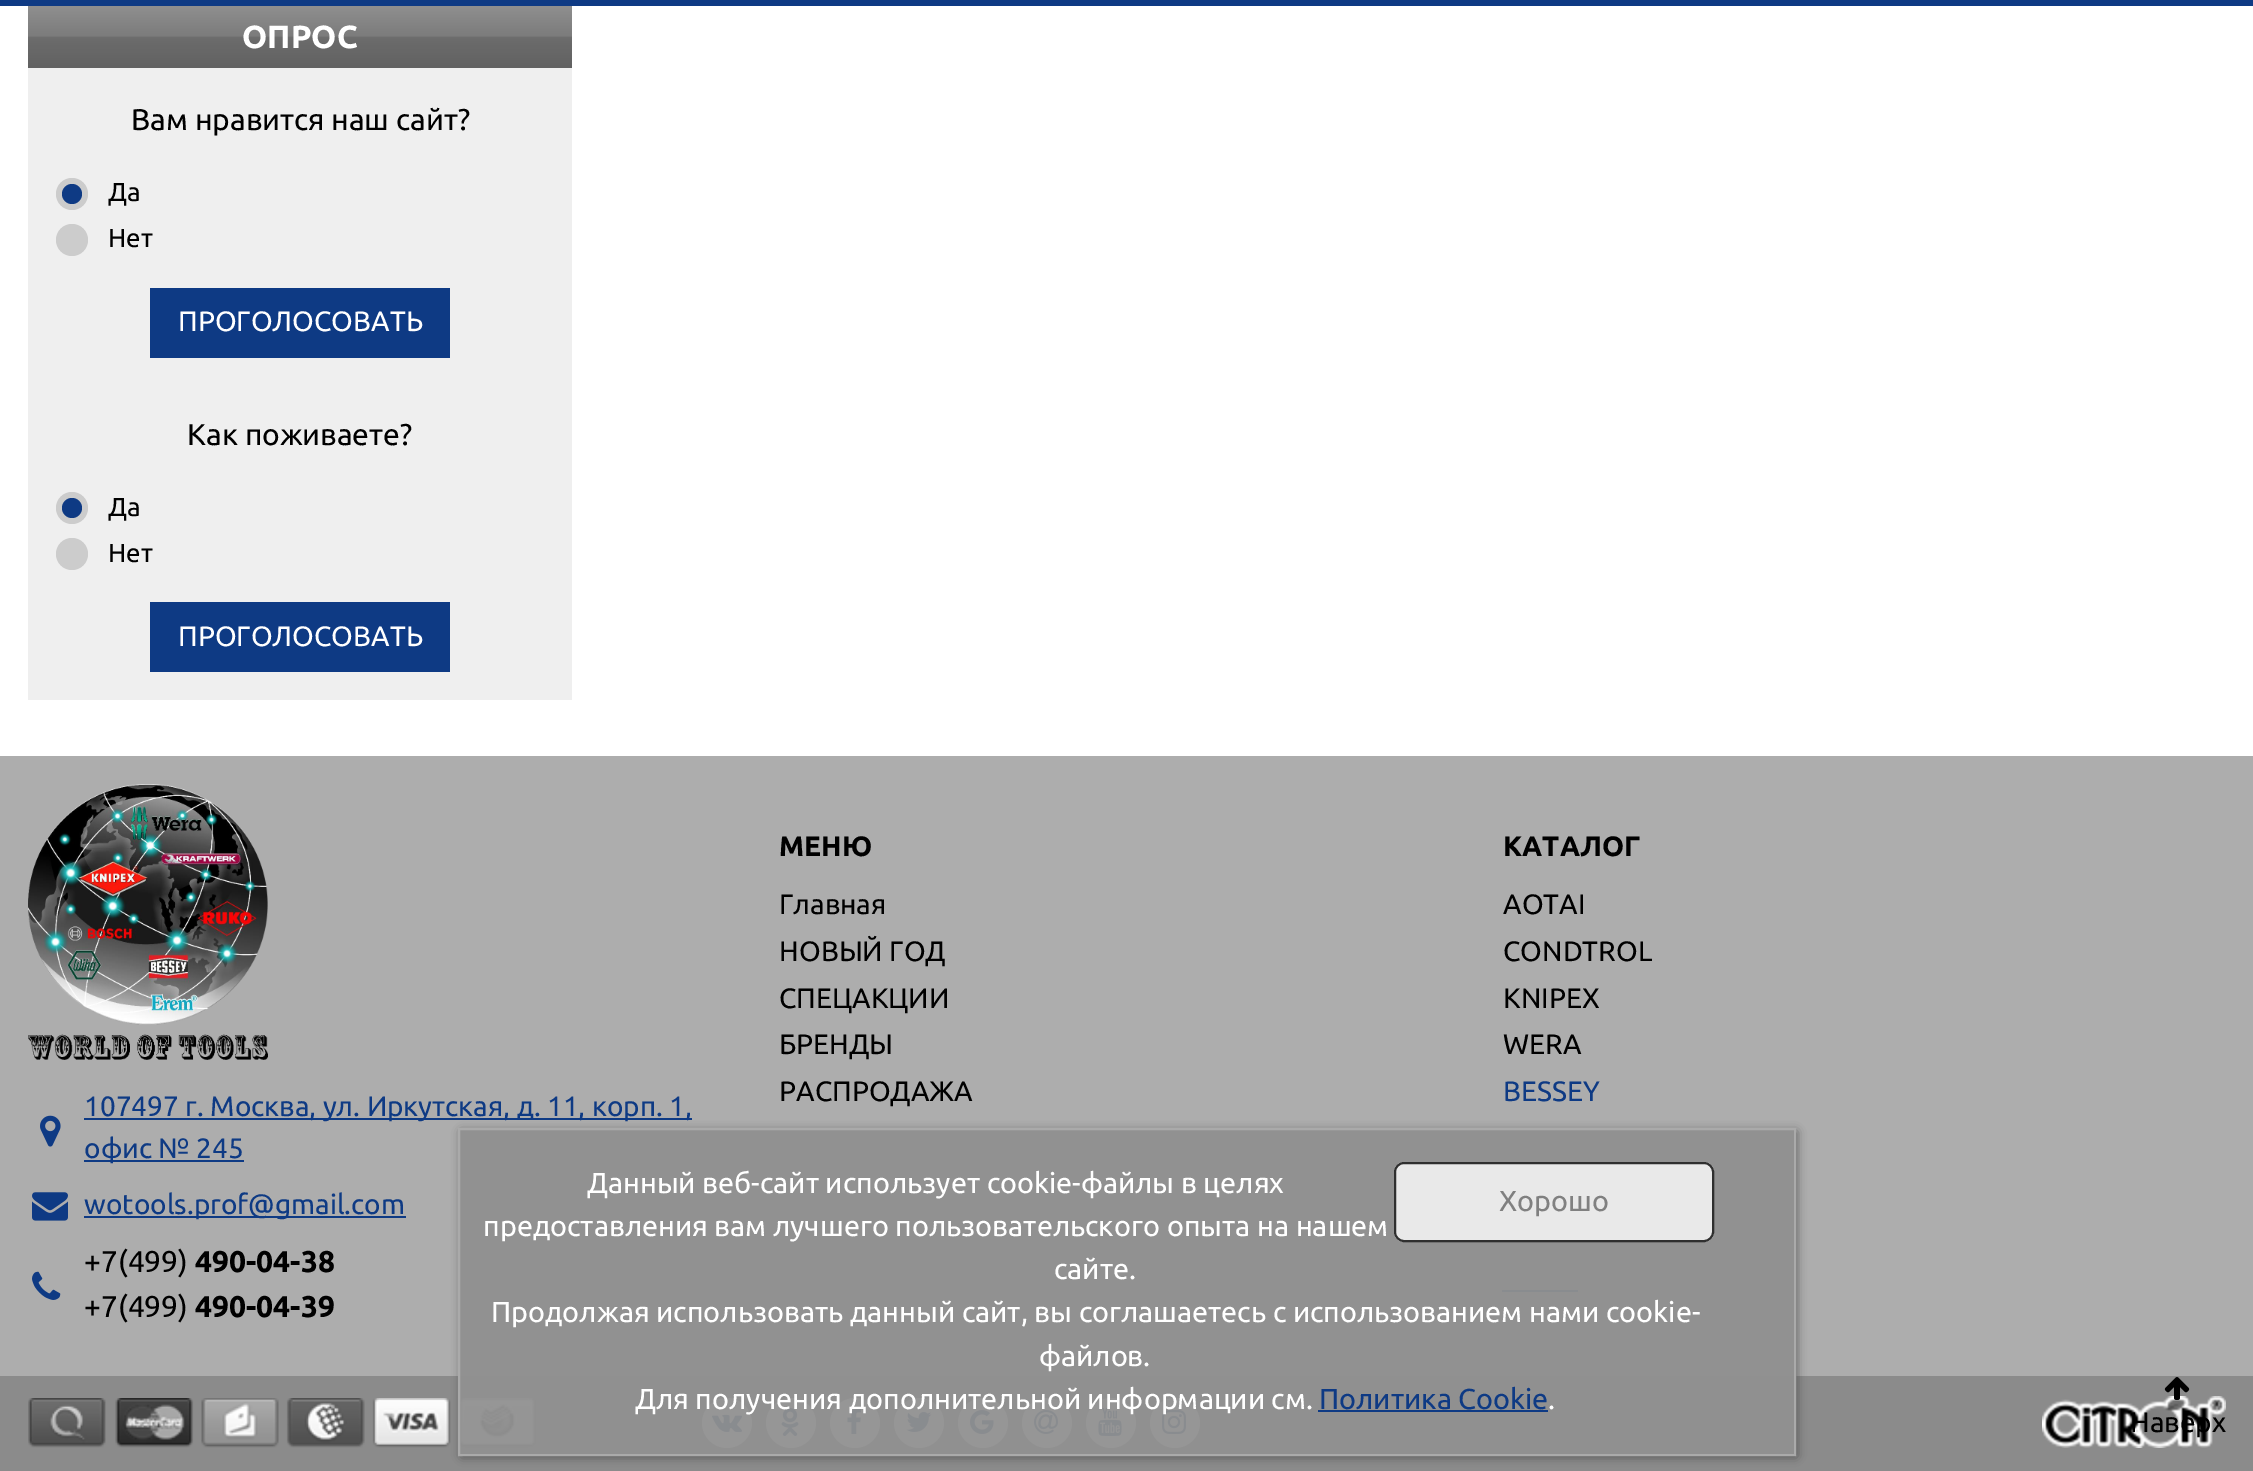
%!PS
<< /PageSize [2253 1471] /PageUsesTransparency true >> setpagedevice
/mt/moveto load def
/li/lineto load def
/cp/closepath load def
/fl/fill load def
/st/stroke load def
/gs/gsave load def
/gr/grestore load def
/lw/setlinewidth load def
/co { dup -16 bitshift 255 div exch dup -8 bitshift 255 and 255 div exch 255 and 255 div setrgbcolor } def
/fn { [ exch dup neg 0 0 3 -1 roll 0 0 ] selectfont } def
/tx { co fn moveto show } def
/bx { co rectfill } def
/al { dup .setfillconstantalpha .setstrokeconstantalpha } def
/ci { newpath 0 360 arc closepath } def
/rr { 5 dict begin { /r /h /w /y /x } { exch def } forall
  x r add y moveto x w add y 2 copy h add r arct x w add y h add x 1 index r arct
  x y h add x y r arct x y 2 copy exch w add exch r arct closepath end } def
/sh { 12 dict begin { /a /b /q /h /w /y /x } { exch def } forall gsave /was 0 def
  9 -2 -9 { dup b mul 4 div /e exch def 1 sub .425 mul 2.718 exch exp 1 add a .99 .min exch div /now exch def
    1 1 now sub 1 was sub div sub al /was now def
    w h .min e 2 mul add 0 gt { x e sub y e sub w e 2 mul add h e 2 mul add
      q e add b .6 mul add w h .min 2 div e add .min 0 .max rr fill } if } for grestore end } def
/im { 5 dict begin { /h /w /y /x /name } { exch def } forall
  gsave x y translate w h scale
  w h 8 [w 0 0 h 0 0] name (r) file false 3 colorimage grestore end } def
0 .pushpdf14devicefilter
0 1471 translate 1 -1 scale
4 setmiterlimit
0 0 2253 1471 16#FFFFFF bx
0 0 2253 6 16#0E3A84 bx
28 68 544 632 16#EFEFEF bx
gs 28 6 mt 572 6 li 572 68 li 28 68 li cp clip newpath
<< /ShadingType 2 /ColorSpace /DeviceRGB /Coords [300 4 300 68] /Extend [true true] /Function << /FunctionType 3 /Domain [0 1] /Functions [<< /FunctionType 2 /Domain [0 1] /C0 [.565 .565 .565] /C1 [.486 .486 .486] /N 1 >> << /FunctionType 2 /Domain [0 1] /C0 [.486 .486 .486] /C1 [.424 .424 .424] /N 1 >> << /FunctionType 2 /Domain [0 1] /C0 [.424 .424 .424] /C1 [.38 .38 .38] /N 1 >>] /Bounds [.5 .52] /Encode [0 1 0 1 0 1] >> >> shfill gr
16#CCCCCC co
72 194 16 ci fl
16#0E3A84 co
72 194 10 ci fl
16#CCCCCC co
72 240 16 ci fl
150 288 300 70 16#0E3A84 bx
16#CCCCCC co
72 508 16 ci fl
16#0E3A84 co
72 508 10 ci fl
16#CCCCCC co
72 554 16 ci fl
150 602 300 70 16#0E3A84 bx
0 756 2253 620 16#ADADAD bx
1502 1290 76 2 16#0E3A84 bx
(media/1.raw) 28 784 240 276 im
84 1118 608 2 16#0E3A84 bx
(media/2.raw) 40 1115 21 32 im
84 1160 160 2 16#0E3A84 bx
(media/3.raw) 32 1192 36 29 im
84 1216 322 2 16#0E3A84 bx
(media/4.raw) 32 1271 29 29 im
0 1376 2253 95 16#8B8B8B bx
(media/5.raw) 28 1398 508 50 im
16#FFFFFF co
727 1423 25 ci fl
(media/6.raw) 712 1414 30 18 im
791 1423 25 ci fl
(media/7.raw) 781 1408 18 28 im
855 1423 25 ci fl
(media/8.raw) 847 1408 14 26 im
919 1423 25 ci fl
(media/9.raw) 906 1412 26 20 im
983 1423 25 ci fl
(media/10.raw) 970 1410 24 24 im
1047 1423 25 ci fl
(media/11.raw) 1034 1410 24 24 im
1111 1423 25 ci fl
(media/12.raw) 1098 1408 24 28 im
1175 1423 25 ci fl
(media/13.raw) 1162 1410 24 24 im
(media/14.raw) 2042 1396 184 52 im
(media/15.raw) 2164 1377 26 23 im
gs
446 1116 mt 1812 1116 li 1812 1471 li 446 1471 li cp 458 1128 mt 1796 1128 li 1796 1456 li 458 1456 li cp eoclip newpath
16#444444 co
462 1132 1334 324 0 5 1 sh
gr
0.95 al
16#909090 co
459 1129 mt 1795 1129 li 1795 1455 li 459 1455 li cp fl
1 al
16#AAAAAA co
2 lw
459 1129 mt 1795 1129 li 1795 1455 li 459 1455 li cp st
0.8 al
16#FFFFFF co
1394 1162 320 80 10 rr fl
16#000000 co
1395 1163 318 78 9 rr st
1 al
1318 1410 230 2 16#0E3A84 bx
(ОПРОС) 242 48 /Ubuntu-Bold 32 16#FFFFFF tx
(Вам нравится наш сайт?) 131 130 /Ubuntu-Regular 30 16#000000 tx
(Да) 108 201 /Ubuntu-Regular 26 16#000000 tx
(Нет) 108 247 /Ubuntu-Regular 26 16#000000 tx
(ПРОГОЛОСОВАТЬ) 178 331 /Ubuntu-Regular 28 16#FFFFFF tx
(Как поживаете?) 187 445 /Ubuntu-Regular 30 16#000000 tx
(Да) 108 516 /Ubuntu-Regular 26 16#000000 tx
(Нет) 108 562 /Ubuntu-Regular 26 16#000000 tx
(ПРОГОЛОСОВАТЬ) 178 646 /Ubuntu-Regular 28 16#FFFFFF tx
(МЕНЮ) 779 856 /Ubuntu-Bold 28 16#000000 tx
(Главная) 779 914 /Ubuntu-Regular 28 16#000000 tx
(НОВЫЙ ГОД) 779 961 /Ubuntu-Regular 28 16#000000 tx
(СПЕЦАКЦИИ) 779 1008 /Ubuntu-Regular 28 16#000000 tx
(БРЕНДЫ) 779 1054 /Ubuntu-Regular 28 16#000000 tx
(РАСПРОДАЖА) 779 1101 /Ubuntu-Regular 28 16#000000 tx
(КАТАЛОГ) 1503 856 /Ubuntu-Bold 28 16#000000 tx
(AOTAI) 1503 914 /Ubuntu-Regular 28 16#000000 tx
(CONDTROL) 1503 961 /Ubuntu-Regular 28 16#000000 tx
(KNIPEX) 1503 1008 /Ubuntu-Regular 28 16#000000 tx
(WERA) 1503 1054 /Ubuntu-Regular 28 16#000000 tx
(BESSEY) 1503 1101 /Ubuntu-Regular 28 16#0E3A84 tx
(107497 г. Москва, ул. Иркутская, д. 11, корп. 1,) 84 1116 /Ubuntu-Regular 28 16#0E3A84 tx
(офис № 245) 84 1158 /Ubuntu-Regular 28 16#0E3A84 tx
(wotools.prof@gmail.com) 84 1214 /Ubuntu-Regular 28 16#0E3A84 tx
(+7\(499\)) 84 1272 /Ubuntu-Regular 30 16#000000 tx
(490-04-38) 195 1272 /Ubuntu-Bold 30 16#000000 tx
(+7\(499\)) 84 1317 /Ubuntu-Regular 30 16#000000 tx
(490-04-39) 195 1317 /Ubuntu-Bold 30 16#000000 tx
(Наверх) 2130 1432 /Ubuntu-Regular 28 16#000000 tx
(Данный веб-сайт использует cookie-файлы в целях) 587 1193 /Ubuntu-Regular 28.8 16#FFFFFF tx
(Хорошо) 1499 1211 /Ubuntu-Regular 28.8 16#808080 tx
(предоставления вам лучшего пользовательского опыта на нашем) 483 1236 /Ubuntu-Regular 28.8 16#FFFFFF tx
(сайте.) 1054 1279 /Ubuntu-Regular 28.8 16#FFFFFF tx
(Продолжая использовать данный сайт, вы соглашаетесь с использованием нами cookie-) 491 1322 /Ubuntu-Regular 28.8 16#FFFFFF tx
(файлов.) 1039 1366 /Ubuntu-Regular 28.8 16#FFFFFF tx
(Для получения дополнительной информации см.) 635 1409 /Ubuntu-Regular 28.8 16#FFFFFF tx
(Политика Cookie) 1319 1409 /Ubuntu-Regular 28.8 16#0E3A84 tx
(.) 1548 1409 /Ubuntu-Regular 28.8 16#FFFFFF tx
.poppdf14devicefilter showpage
